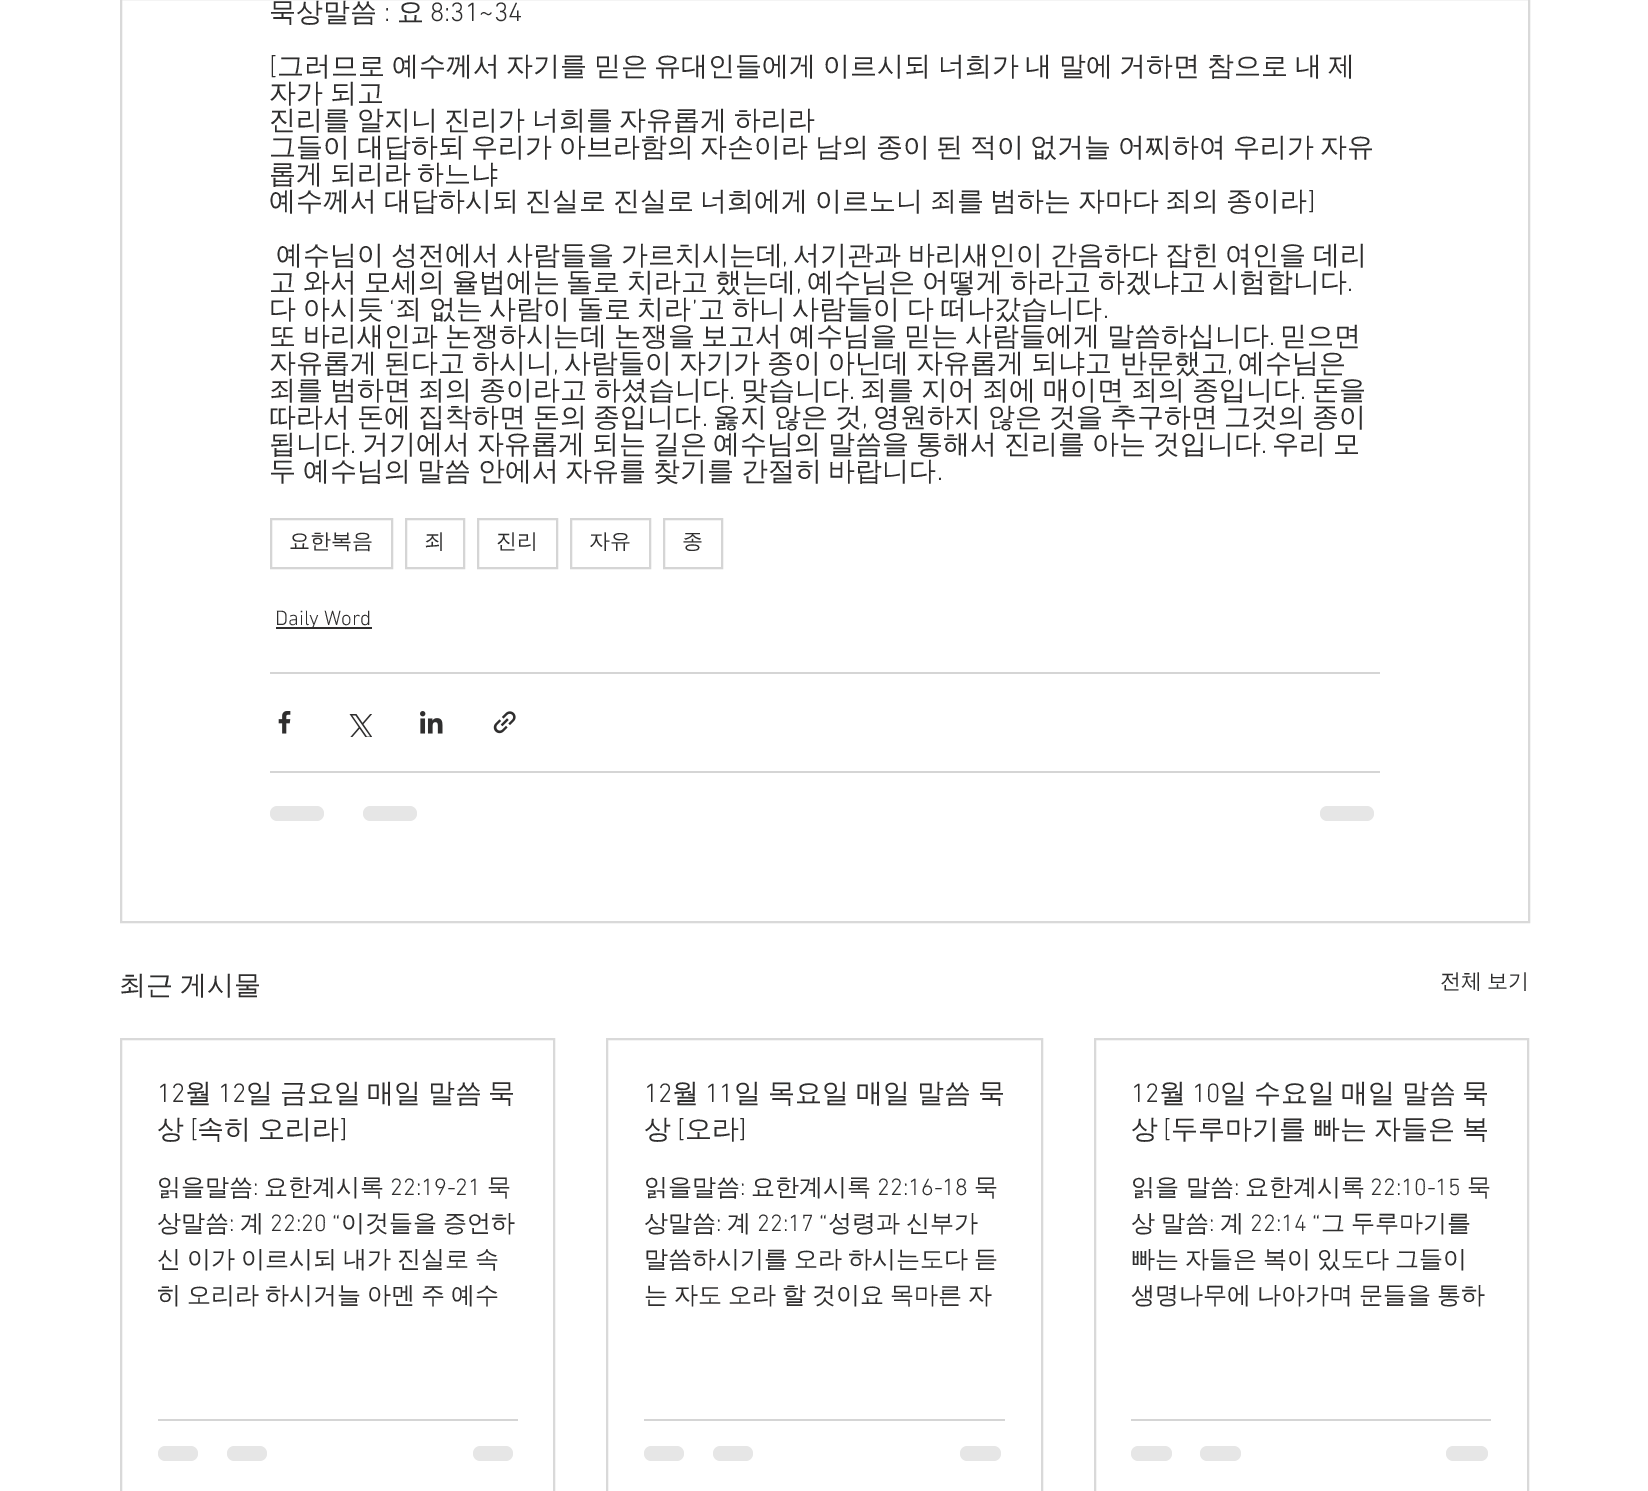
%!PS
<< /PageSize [1648 1491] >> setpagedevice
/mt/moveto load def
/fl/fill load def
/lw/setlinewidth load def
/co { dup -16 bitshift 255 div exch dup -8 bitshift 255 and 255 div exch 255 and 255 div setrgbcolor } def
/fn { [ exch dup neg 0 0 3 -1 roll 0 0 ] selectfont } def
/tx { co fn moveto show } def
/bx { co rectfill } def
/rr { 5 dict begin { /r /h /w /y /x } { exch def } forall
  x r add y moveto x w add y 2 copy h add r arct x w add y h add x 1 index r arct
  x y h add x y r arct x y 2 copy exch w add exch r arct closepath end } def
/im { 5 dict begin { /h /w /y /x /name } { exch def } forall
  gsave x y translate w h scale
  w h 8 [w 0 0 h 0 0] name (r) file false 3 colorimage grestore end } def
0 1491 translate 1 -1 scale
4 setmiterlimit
0 0 1648 1491 16#FFFFFF bx
16#D9D9D9 co
2 lw
121 -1 1408 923 rectstroke
16#D5D5D5 co
271 519 121 49 rectstroke
406 519 58 49 rectstroke
478 519 79 49 rectstroke
571 519 79 49 rectstroke
664 519 58 49 rectstroke
276 627 96 2 16#2F2E2E bx
270 672 1110 2 16#D5D5D5 bx
(media/1.raw) 278 711 13 23 im
(media/2.raw) 349 714 23 23 im
(media/3.raw) 420 711 23 23 im
(media/4.raw) 493 711 23 23 im
270 771 1110 2 16#D5D5D5 bx
16#E6E6E6 co
270 806 54 15 7.5 rr fl
363 806 54 15 7.5 rr fl
1320 806 54 15 7.5 rr fl
16#D9D9D9 co
121 1039 433 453 rectstroke
158 1419 360 2 16#D5D5D5 bx
16#E6E6E6 co
158 1446 40 15 7.5 rr fl
227 1446 40 15 7.5 rr fl
473 1446 40 15 7.5 rr fl
16#D9D9D9 co
607 1039 435 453 rectstroke
644 1419 361 2 16#D5D5D5 bx
16#E6E6E6 co
644 1446 40 15 7.5 rr fl
713 1446 40 15 7.5 rr fl
960 1446 41 15 7.5 rr fl
16#D9D9D9 co
1095 1039 433 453 rectstroke
1131 1419 360 2 16#D5D5D5 bx
16#E6E6E6 co
1131 1446 41 15 7.5 rr fl
1200 1446 41 15 7.5 rr fl
1446 1446 42 15 7.5 rr fl
(묵상말씀) 269 21 /WenQuanYiZenHei-Medium 27 16#2F2E2E tx
(:) 384 21 /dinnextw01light-Light 27 16#2F2E2E tx
(요) 397 21 /WenQuanYiZenHei-Medium 27 16#2F2E2E tx
(8:31~34) 430 21 /dinnextw01light-Light 27 16#2F2E2E tx
([) 269 75 /dinnextw01light-Light 27 16#2F2E2E tx
/WenQuanYiZenHei-Medium 27 fn
277 75 mt -1.5 0 32 (그러므로 예수께서 자기를 믿은 유대인들에게 이르시되 너희가 내 말에 거하면 참으로 내 제) widthshow
269 102 mt -1.5 0 32 (자가 되고) widthshow
269 129 mt -1.5 0 32 (진리를 알지니 진리가 너희를 자유롭게 하리라) widthshow
269 156 mt -1.5 0 32 (그들이 대답하되 우리가 아브라함의 자손이라 남의 종이 된 적이 없거늘 어찌하여 우리가 자유) widthshow
269 183 mt -1.5 0 32 (롭게 되리라 하느냐) widthshow
269 210 mt -1.5 0 32 (예수께서 대답하시되 진실로 진실로 너희에게 이르노니 죄를 범하는 자마다 죄의 종이라) widthshow
(]) 1308 210 /dinnextw01light-Light 27 16#2F2E2E tx
/WenQuanYiZenHei-Medium 27 fn
276 264 mt -1.25 0 32 (예수님이 성전에서 사람들을 가르치시는데) widthshow
(,) 782 264 /dinnextw01light-Light 27 16#2F2E2E tx
/WenQuanYiZenHei-Medium 27 fn
793 264 mt -1.25 0 32 (서기관과 바리새인이 간음하다 잡힌 여인을 데리) widthshow
269 291 mt -1.25 0 32 (고 와서 모세의 율법에는 돌로 치라고 했는데) widthshow
(,) 796 291 /dinnextw01light-Light 27 16#2F2E2E tx
/WenQuanYiZenHei-Medium 27 fn
807 291 mt -1.25 0 32 (예수님은 어떻게 하라고 하겠냐고 시험합니다) widthshow
(.) 1347 291 /dinnextw01light-Light 27 16#2F2E2E tx
/WenQuanYiZenHei-Medium 27 fn
269 318 mt -1.5 0 32 (다 아시듯) widthshow
(‘) 389 318 /dinnextw01light-Light 27 16#2F2E2E tx
/WenQuanYiZenHei-Medium 27 fn
395 318 mt -1.5 0 32 (죄 없는 사람이 돌로 치라) widthshow
(’) 692 318 /dinnextw01light-Light 27 16#2F2E2E tx
/WenQuanYiZenHei-Medium 27 fn
698 318 mt -1.5 0 32 (고 하니 사람들이 다 떠나갔습니다) widthshow
(.) 1103 318 /dinnextw01light-Light 27 16#2F2E2E tx
/WenQuanYiZenHei-Medium 27 fn
269 345 mt -1.25 0 32 (또 바리새인과 논쟁하시는데 논쟁을 보고서 예수님을 믿는 사람들에게 말씀하십니다) widthshow
(.) 1269 345 /dinnextw01light-Light 27 16#2F2E2E tx
(믿으면) 1280 345 /WenQuanYiZenHei-Medium 27 16#2F2E2E tx
269 372 mt -1 0 32 (자유롭게 된다고 하시니) widthshow
(,) 553 372 /dinnextw01light-Light 27 16#2F2E2E tx
/WenQuanYiZenHei-Medium 27 fn
564 372 mt -1 0 32 (사람들이 자기가 종이 아닌데 자유롭게 되냐고 반문했고) widthshow
(,) 1227 372 /dinnextw01light-Light 27 16#2F2E2E tx
(예수님은) 1238 372 /WenQuanYiZenHei-Medium 27 16#2F2E2E tx
269 399 mt -1 0 32 (죄를 범하면 죄의 종이라고 하셨습니다) widthshow
(.) 729 399 /dinnextw01light-Light 27 16#2F2E2E tx
(맞습니다) 741 399 /WenQuanYiZenHei-Medium 27 16#2F2E2E tx
(.) 849 399 /dinnextw01light-Light 27 16#2F2E2E tx
/WenQuanYiZenHei-Medium 27 fn
860 399 mt -1 0 32 (죄를 지어 죄에 매이면 죄의 종입니다) widthshow
(.) 1300 399 /dinnextw01light-Light 27 16#2F2E2E tx
(돈을) 1312 399 /WenQuanYiZenHei-Medium 27 16#2F2E2E tx
269 426 mt -1.25 0 32 (따라서 돈에 집착하면 돈의 종입니다) widthshow
(.) 702 426 /dinnextw01light-Light 27 16#2F2E2E tx
/WenQuanYiZenHei-Medium 27 fn
713 426 mt -1.25 0 32 (옳지 않은 것) widthshow
(,) 862 426 /dinnextw01light-Light 27 16#2F2E2E tx
/WenQuanYiZenHei-Medium 27 fn
873 426 mt -1.25 0 32 (영원하지 않은 것을 추구하면 그것의 종이) widthshow
(됩니다) 269 453 /WenQuanYiZenHei-Medium 27 16#2F2E2E tx
(.) 350 453 /dinnextw01light-Light 27 16#2F2E2E tx
/WenQuanYiZenHei-Medium 27 fn
362 453 mt -1.25 0 32 (거기에서 자유롭게 되는 길은 예수님의 말씀을 통해서 진리를 아는 것입니다) widthshow
(.) 1261 453 /dinnextw01light-Light 27 16#2F2E2E tx
/WenQuanYiZenHei-Medium 27 fn
1272 453 mt -1.25 0 32 (우리 모) widthshow
269 480 mt -1.5 0 32 (두 예수님의 말씀 안에서 자유를 찾기를 간절히 바랍니다) widthshow
(.) 937 480 /dinnextw01light-Light 27 16#2F2E2E tx
(요한복음) 289 548 /WenQuanYiZenHei-Medium 21 16#2F2E2E tx
(죄) 424 548 /WenQuanYiZenHei-Medium 21 16#2F2E2E tx
(진리) 496 548 /WenQuanYiZenHei-Medium 21 16#2F2E2E tx
(자유) 589 548 /WenQuanYiZenHei-Medium 21 16#2F2E2E tx
(종) 682 548 /WenQuanYiZenHei-Medium 21 16#2F2E2E tx
(Daily Word) 275 625 /dinnextw01light-Light 21 16#2F2E2E tx
/WenQuanYiZenHei-Medium 27 fn
119 994 mt -1.5 0 32 (최근 게시물) widthshow
/WenQuanYiZenHei-Medium 21 fn
1440 988 mt -1 0 32 (전체 보기) widthshow
(12) 157 1102 /dinnextw01light-Light 27 16#2F2E2E tx
(월) 185 1102 /WenQuanYiZenHei-Medium 27 16#2F2E2E tx
(12) 218 1102 /dinnextw01light-Light 27 16#2F2E2E tx
/WenQuanYiZenHei-Medium 27 fn
246 1102 mt -1.5 0 32 (일 금요일 매일 말씀 묵) widthshow
(상) 157 1138 /WenQuanYiZenHei-Medium 27 16#2F2E2E tx
([) 190 1138 /dinnextw01light-Light 27 16#2F2E2E tx
/WenQuanYiZenHei-Medium 27 fn
197 1138 mt -1 0 32 (속히 오리라) widthshow
(]) 340 1138 /dinnextw01light-Light 27 16#2F2E2E tx
(읽을말씀) 157 1195 /WenQuanYiZenHei-Medium 24 16#2F2E2E tx
(:) 253 1195 /dinnextw01light-Light 24 16#2F2E2E tx
(요한계시록) 264 1195 /WenQuanYiZenHei-Medium 24 16#2F2E2E tx
(22:19-21) 390 1195 /dinnextw01light-Light 24 16#2F2E2E tx
(묵) 487 1195 /WenQuanYiZenHei-Medium 24 16#2F2E2E tx
(상말씀) 157 1231 /WenQuanYiZenHei-Medium 24 16#2F2E2E tx
(:) 229 1231 /dinnextw01light-Light 24 16#2F2E2E tx
(계) 240 1231 /WenQuanYiZenHei-Medium 24 16#2F2E2E tx
(22:20 “) 270 1231 /dinnextw01light-Light 24 16#2F2E2E tx
(이것들을) 341 1231 /WenQuanYiZenHei-Medium 24 16#2F2E2E tx
(증언하) 443 1231 /WenQuanYiZenHei-Medium 24 16#2F2E2E tx
157 1267 mt -1.25 0 32 (신 이가 이르시되 내가 진실로 속) widthshow
157 1303 mt -1.25 0 32 (히 오리라 하시거늘 아멘 주 예수) widthshow
(12) 644 1102 /dinnextw01light-Light 27 16#2F2E2E tx
(월) 672 1102 /WenQuanYiZenHei-Medium 27 16#2F2E2E tx
(11) 705 1102 /dinnextw01light-Light 27 16#2F2E2E tx
/WenQuanYiZenHei-Medium 27 fn
734 1102 mt -1 0 32 (일 목요일 매일 말씀 묵) widthshow
(상) 644 1138 /WenQuanYiZenHei-Medium 27 16#2F2E2E tx
([) 677 1138 /dinnextw01light-Light 27 16#2F2E2E tx
(오라) 685 1138 /WenQuanYiZenHei-Medium 27 16#2F2E2E tx
(]) 739 1138 /dinnextw01light-Light 27 16#2F2E2E tx
(읽을말씀) 644 1195 /WenQuanYiZenHei-Medium 24 16#2F2E2E tx
(:) 740 1195 /dinnextw01light-Light 24 16#2F2E2E tx
(요한계시록) 751 1195 /WenQuanYiZenHei-Medium 24 16#2F2E2E tx
(22:16-18) 877 1195 /dinnextw01light-Light 24 16#2F2E2E tx
(묵) 974 1195 /WenQuanYiZenHei-Medium 24 16#2F2E2E tx
(상말씀) 644 1231 /WenQuanYiZenHei-Medium 24 16#2F2E2E tx
(:) 716 1231 /dinnextw01light-Light 24 16#2F2E2E tx
(계) 727 1231 /WenQuanYiZenHei-Medium 24 16#2F2E2E tx
(22:17 “) 757 1231 /dinnextw01light-Light 24 16#2F2E2E tx
(성령과) 828 1231 /WenQuanYiZenHei-Medium 24 16#2F2E2E tx
(신부가) 906 1231 /WenQuanYiZenHei-Medium 24 16#2F2E2E tx
644 1267 mt -1.25 0 32 (말씀하시기를 오라 하시는도다 듣) widthshow
644 1303 mt -1.25 0 32 (는 자도 오라 할 것이요 목마른 자) widthshow
(12) 1131 1102 /dinnextw01light-Light 27 16#2F2E2E tx
(월) 1159 1102 /WenQuanYiZenHei-Medium 27 16#2F2E2E tx
(10) 1192 1102 /dinnextw01light-Light 27 16#2F2E2E tx
/WenQuanYiZenHei-Medium 27 fn
1220 1102 mt -1.5 0 32 (일 수요일 매일 말씀 묵) widthshow
(상) 1131 1138 /WenQuanYiZenHei-Medium 27 16#2F2E2E tx
([) 1163 1138 /dinnextw01light-Light 27 16#2F2E2E tx
/WenQuanYiZenHei-Medium 27 fn
1171 1138 mt -1 0 32 (두루마기를 빠는 자들은 복) widthshow
(읽을 말씀) 1131 1195 /WenQuanYiZenHei-Medium 24 16#2F2E2E tx
(:) 1234 1195 /dinnextw01light-Light 24 16#2F2E2E tx
(요한계시록) 1245 1195 /WenQuanYiZenHei-Medium 24 16#2F2E2E tx
(22:10-15) 1370 1195 /dinnextw01light-Light 24 16#2F2E2E tx
(묵) 1467 1195 /WenQuanYiZenHei-Medium 24 16#2F2E2E tx
(상) 1131 1231 /WenQuanYiZenHei-Medium 24 16#2F2E2E tx
(말씀) 1161 1231 /WenQuanYiZenHei-Medium 24 16#2F2E2E tx
(:) 1209 1231 /dinnextw01light-Light 24 16#2F2E2E tx
(계) 1220 1231 /WenQuanYiZenHei-Medium 24 16#2F2E2E tx
(22:14 “) 1250 1231 /dinnextw01light-Light 24 16#2F2E2E tx
(그) 1321 1231 /WenQuanYiZenHei-Medium 24 16#2F2E2E tx
(두루마기를) 1351 1231 /WenQuanYiZenHei-Medium 24 16#2F2E2E tx
1131 1267 mt -1.25 0 32 (빠는 자들은 복이 있도다 그들이) widthshow
1131 1303 mt -1.25 0 32 (생명나무에 나아가며 문들을 통하) widthshow
showpage
